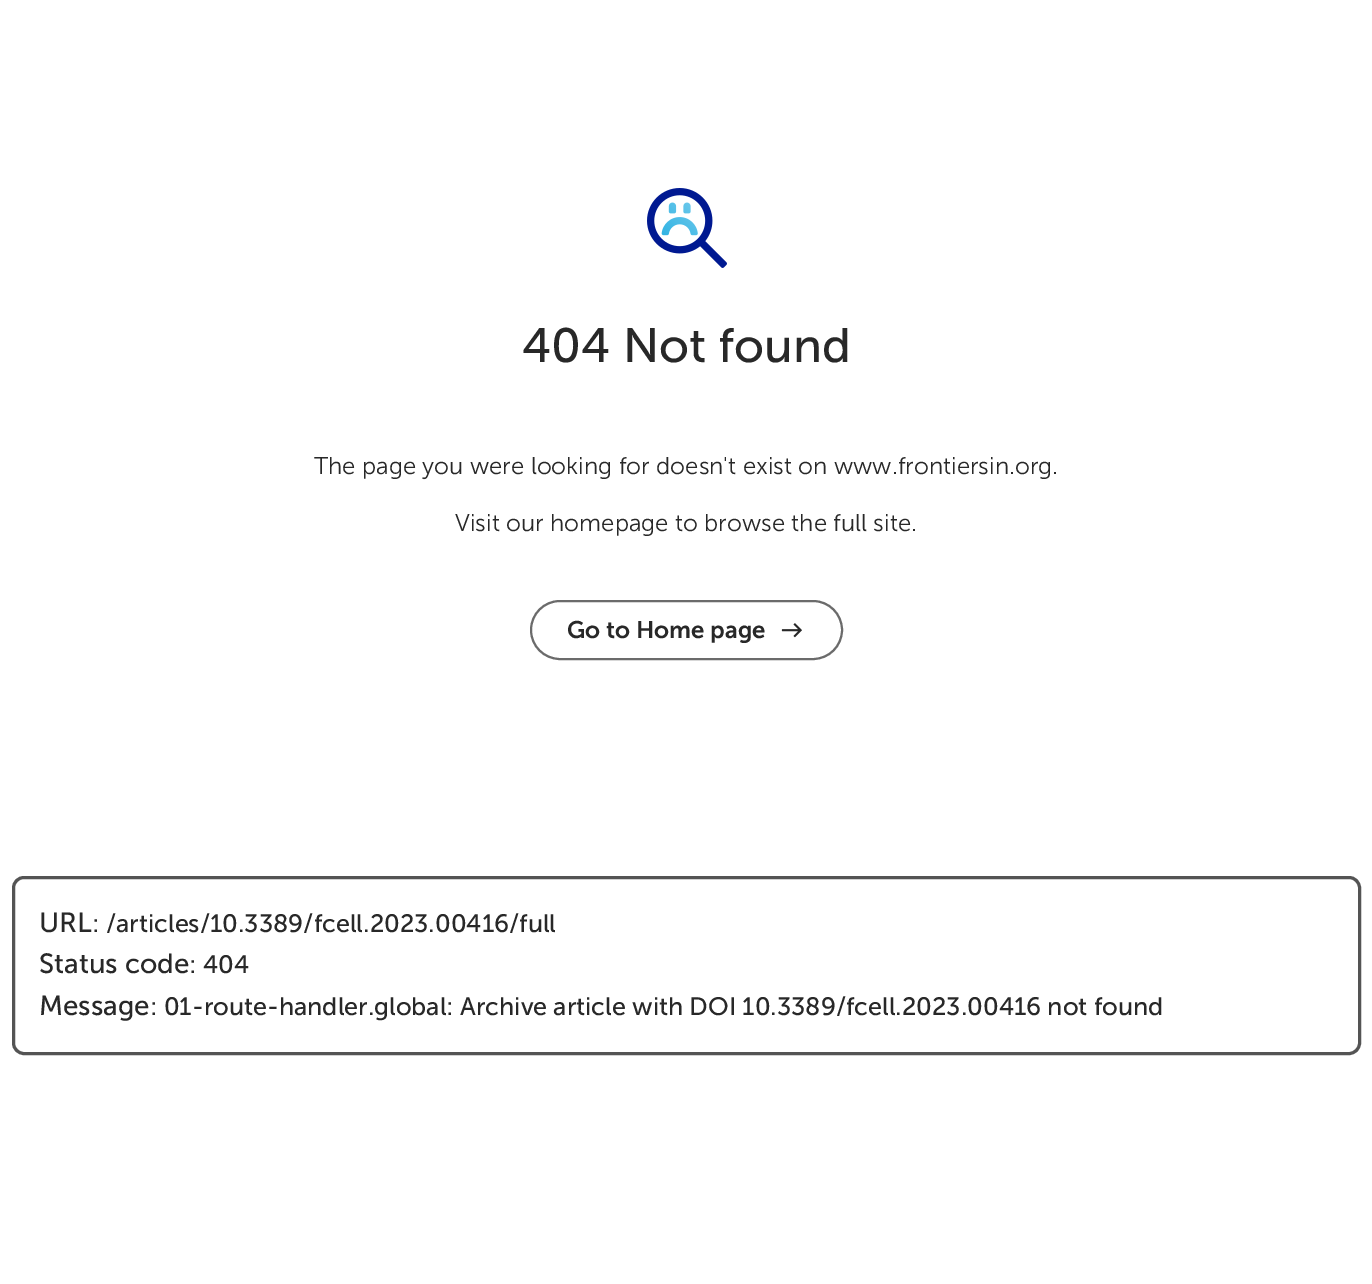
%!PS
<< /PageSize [1372 1284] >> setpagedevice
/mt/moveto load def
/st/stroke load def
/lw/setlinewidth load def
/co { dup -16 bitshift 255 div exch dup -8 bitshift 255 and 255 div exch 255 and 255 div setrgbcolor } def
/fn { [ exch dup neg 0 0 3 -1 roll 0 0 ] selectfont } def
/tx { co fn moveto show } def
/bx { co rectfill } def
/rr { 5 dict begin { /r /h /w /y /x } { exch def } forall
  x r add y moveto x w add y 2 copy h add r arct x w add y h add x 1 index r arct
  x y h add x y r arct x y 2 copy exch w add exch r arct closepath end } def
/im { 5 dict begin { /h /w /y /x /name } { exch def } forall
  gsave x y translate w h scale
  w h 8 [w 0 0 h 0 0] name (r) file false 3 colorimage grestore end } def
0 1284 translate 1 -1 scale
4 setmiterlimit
0 0 1372 1284 16#FFFFFF bx
(media/1.raw) 647 188 80 80 im
16#6B6B6B co
2 lw
531 601 311 58 29 rr st
(media/2.raw) 781 623 21 15 im
16#545454 co
3 lw
13.5 877.5 1346 176 10.5 rr st
(404 Not found) 522 362 /MuseoSans-Regular 48 16#282828 tx
(The page you were looking for doesn't exist on www.frontiersin.org.) 314 474 /MuseoSans-Light 24 16#282828 tx
(Visit our homepage to browse the full site.) 455 531 /MuseoSans-Light 24 16#282828 tx
(Go to Home page) 567 638 /MuseoSans-SemiBold 24 16#282828 tx
(URL) 39 932 /MuseoSans-Regular 27.75 16#282828 tx
(: /articles/10.3389/fcell.2023.00416/full) 92 932 /MuseoSans-Regular 25.2 16#282828 tx
(Status code) 39 973 /MuseoSans-Regular 27.75 16#282828 tx
(: 404) 189 973 /MuseoSans-Regular 25.2 16#282828 tx
(Message) 39 1015 /MuseoSans-Regular 27.75 16#282828 tx
/MuseoSans-Regular 25.2 fn
150 1015 mt -.25 0 32 (: 01-route-handler.global: Archive article with DOI 10.3389/fcell.2023.00416 not found) widthshow
showpage
